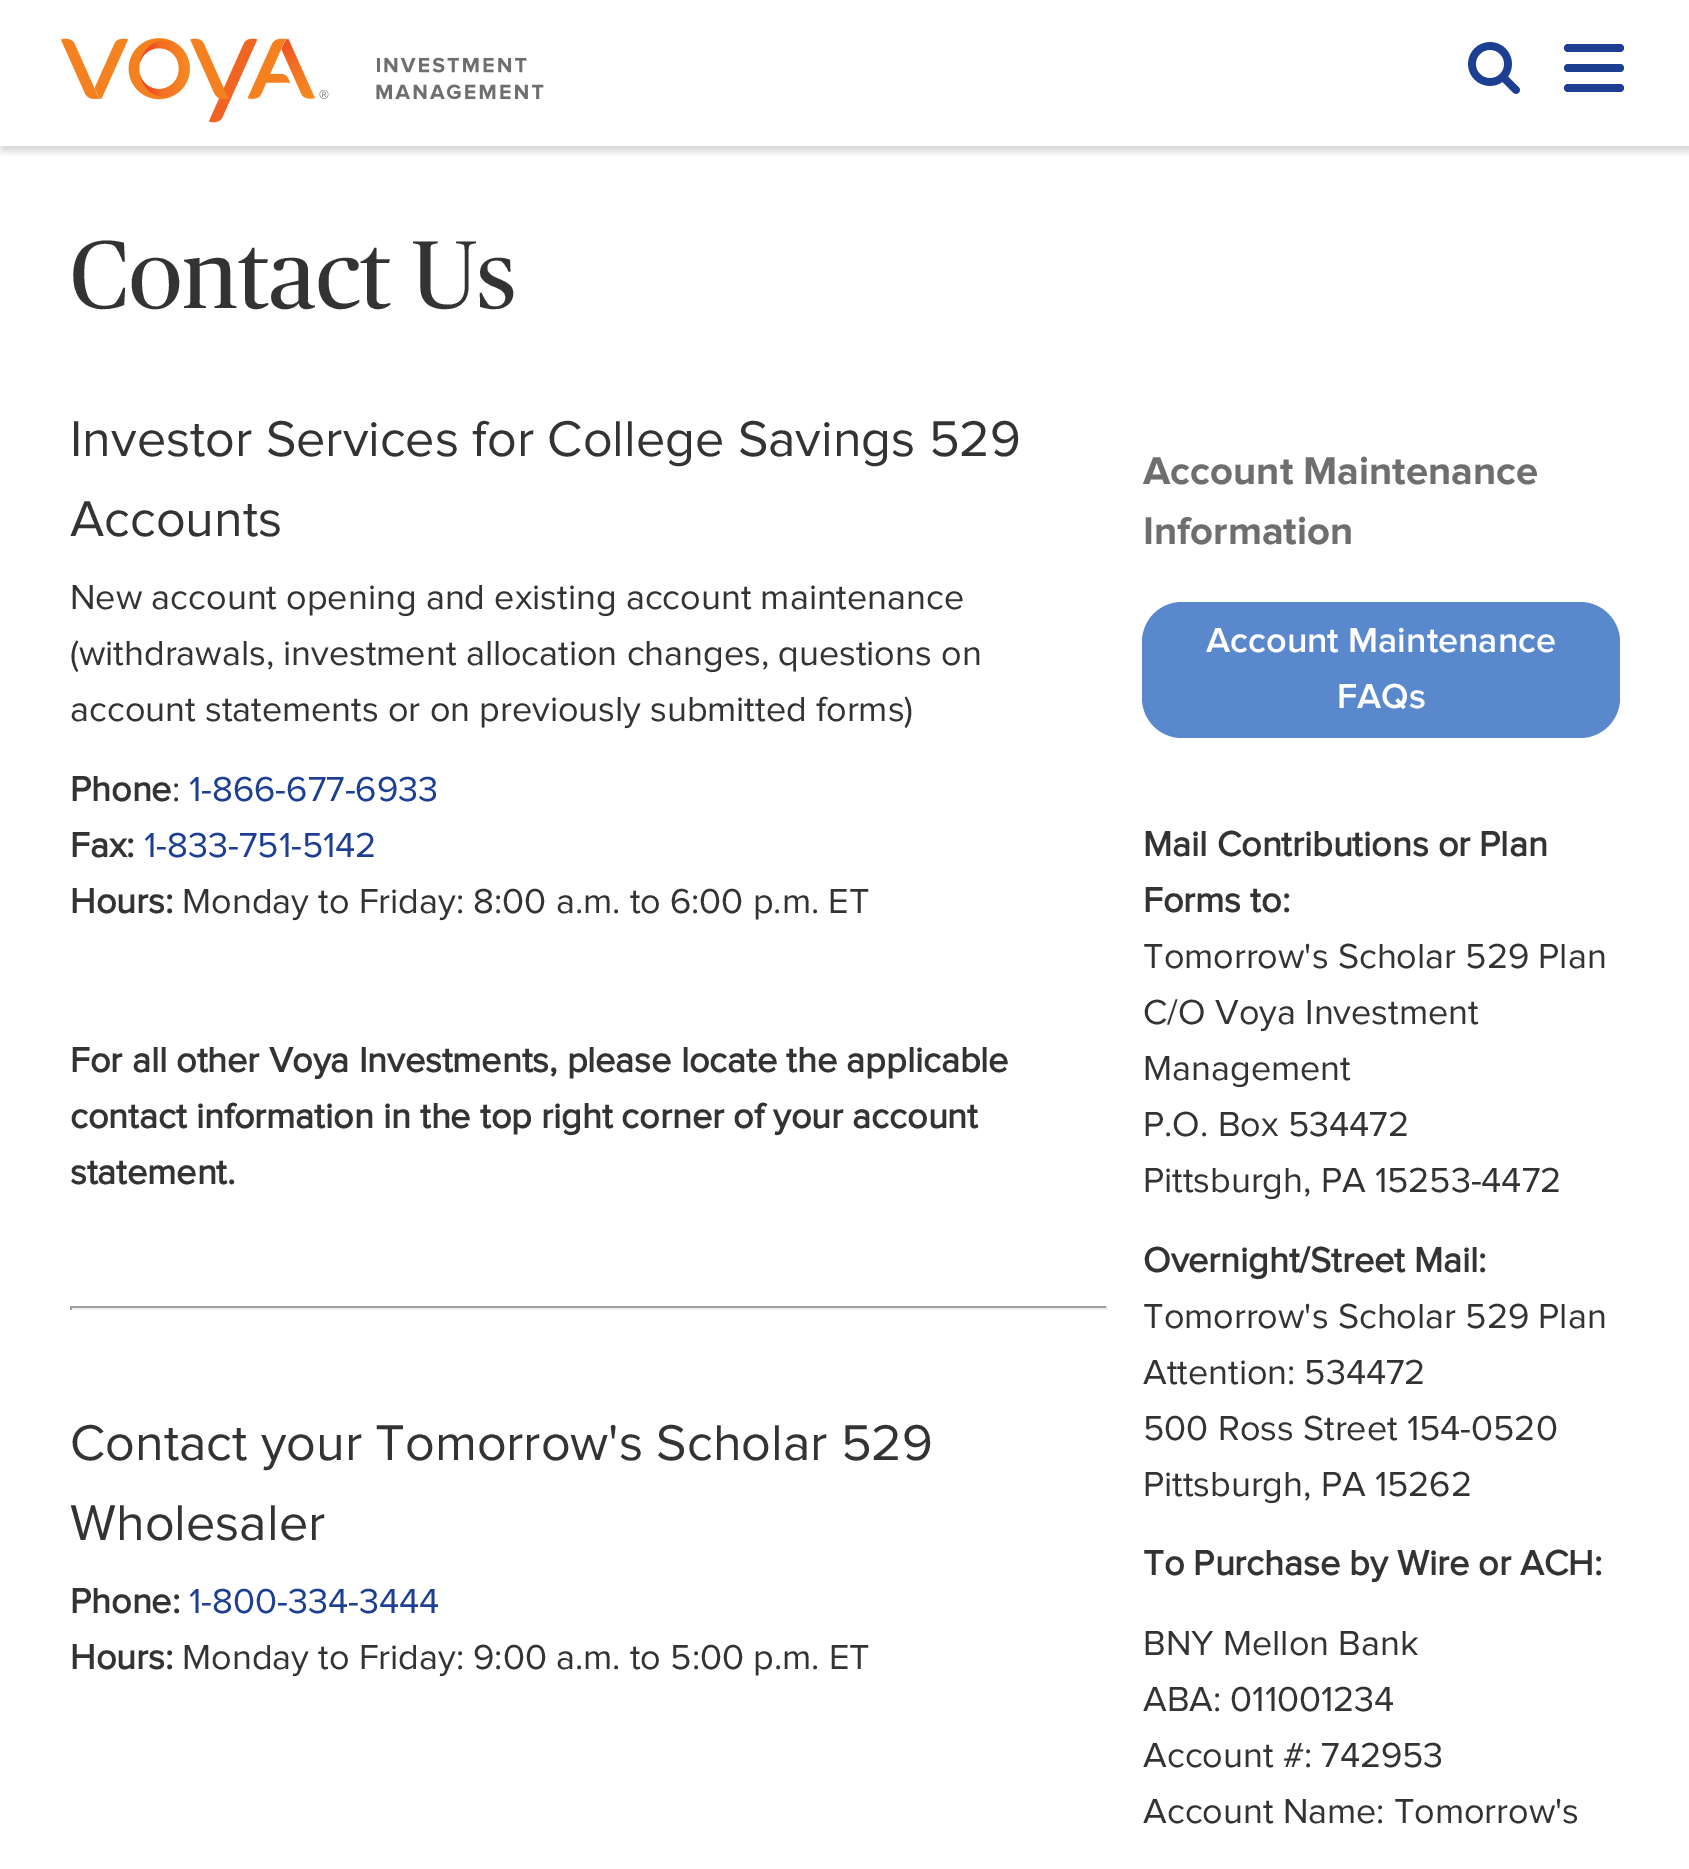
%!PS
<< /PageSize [1689 1869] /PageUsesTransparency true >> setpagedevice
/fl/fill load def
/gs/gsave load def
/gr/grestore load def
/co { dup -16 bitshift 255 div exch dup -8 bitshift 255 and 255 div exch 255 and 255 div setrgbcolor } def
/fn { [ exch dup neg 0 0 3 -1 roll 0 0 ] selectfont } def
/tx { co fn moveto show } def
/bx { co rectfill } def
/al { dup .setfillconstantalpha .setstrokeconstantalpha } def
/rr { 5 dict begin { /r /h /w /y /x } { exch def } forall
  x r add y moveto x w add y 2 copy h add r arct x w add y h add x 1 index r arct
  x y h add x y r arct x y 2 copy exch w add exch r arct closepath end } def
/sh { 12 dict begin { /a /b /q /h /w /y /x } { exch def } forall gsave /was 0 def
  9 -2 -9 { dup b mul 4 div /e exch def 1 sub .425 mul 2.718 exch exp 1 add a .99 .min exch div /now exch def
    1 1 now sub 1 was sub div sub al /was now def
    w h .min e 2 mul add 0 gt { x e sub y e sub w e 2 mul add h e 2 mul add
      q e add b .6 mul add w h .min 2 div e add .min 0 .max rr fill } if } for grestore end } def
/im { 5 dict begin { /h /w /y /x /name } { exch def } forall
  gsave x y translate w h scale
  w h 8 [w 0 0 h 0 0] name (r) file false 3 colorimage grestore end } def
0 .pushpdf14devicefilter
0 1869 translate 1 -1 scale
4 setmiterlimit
0 0 1689 1869 16#FFFFFF bx
gs
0 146 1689 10 rectclip
16#000000 co
2 4 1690 146 0 5 .2 sh
gr
16#1C3F94 co
1564 44 60 8 4 rr fl
1564 64 60 8 4 rr fl
1564 84 60 8 4 rr fl
(media/1.raw) 60 38 484 85 im
(media/2.raw) 1468 42 52 52 im
70 1306 1038 2 16#9F9F9F bx
1106 1306 2 4 16#EEEEEE bx
70 1308 1038 2 16#EEEEEE bx
70 1306 2 4 16#9F9F9F bx
16#5A88CC co
1142 602 478 136 40 rr fl
(Contact Us) 70 308 /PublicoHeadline-Regular 96 16#333333 tx
(Investor Services for College Savings 529) 70 456 /ProximaNova-Regular 52 16#333333 tx
(Accounts) 70 536 /ProximaNova-Regular 52 16#333333 tx
(New account opening and existing account maintenance) 70 609 /ProximaNova-Regular 36 16#333333 tx
(\(withdrawals, investment allocation changes, questions on) 70 665 /ProximaNova-Regular 36 16#333333 tx
(account statements or on previously submitted forms\)) 70 721 /ProximaNova-Regular 36 16#333333 tx
(Phone) 70 801 /ProximaNova-Bold 36 16#333333 tx
(:) 172 801 /ProximaNova-Regular 36 16#333333 tx
(1-866-677-6933) 189 801 /ProximaNova-Regular 36 16#1C3F94 tx
(Fax:) 70 857 /ProximaNova-Bold 36 16#333333 tx
(1-833-751-5142) 144 857 /ProximaNova-Regular 36 16#1C3F94 tx
(Hours:) 70 913 /ProximaNova-Bold 36 16#333333 tx
(Monday to Friday: 8:00 a.m. to 6:00 p.m. ET) 182 913 /ProximaNova-Regular 36 16#333333 tx
(For all other Voya Investments, please locate the applicable) 70 1072 /ProximaNova-Bold 36 16#333333 tx
(contact information in the top right corner of your account) 70 1128 /ProximaNova-Bold 36 16#333333 tx
(statement.) 70 1184 /ProximaNova-Bold 36 16#333333 tx
(Contact your Tomorrow's Scholar 529) 70 1460 /ProximaNova-Regular 52 16#333333 tx
(Wholesaler) 70 1540 /ProximaNova-Regular 52 16#333333 tx
(Phone:) 70 1613 /ProximaNova-Bold 36 16#333333 tx
(1-800-334-3444) 189 1613 /ProximaNova-Regular 36 16#1C3F94 tx
(Hours:) 70 1669 /ProximaNova-Bold 36 16#333333 tx
(Monday to Friday: 9:00 a.m. to 5:00 p.m. ET) 182 1669 /ProximaNova-Regular 36 16#333333 tx
(Account Maintenance) 1143 484 /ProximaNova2-Bold 40 16#6E6E6E tx
(Information) 1143 544 /ProximaNova2-Bold 40 16#6E6E6E tx
(Account Maintenance) 1206 652 /ProximaNova-SemiBold 36 16#FFFFFF tx
(FAQs) 1337 708 /ProximaNova-SemiBold 36 16#FFFFFF tx
(Mail Contributions or Plan) 1143 856 /ProximaNova-Bold 36 16#333333 tx
(Forms to:) 1143 912 /ProximaNova-Bold 36 16#333333 tx
(Tomorrow's Scholar 529 Plan) 1143 968 /ProximaNova-Regular 36 16#333333 tx
(C/O Voya Investment) 1143 1024 /ProximaNova-Regular 36 16#333333 tx
(Management) 1143 1080 /ProximaNova-Regular 36 16#333333 tx
(P.O. Box 534472) 1143 1136 /ProximaNova-Regular 36 16#333333 tx
(Pittsburgh, PA 15253-4472) 1143 1192 /ProximaNova-Regular 36 16#333333 tx
(Overnight/Street Mail:) 1143 1272 /ProximaNova-Bold 36 16#333333 tx
(Tomorrow's Scholar 529 Plan) 1143 1328 /ProximaNova-Regular 36 16#333333 tx
(Attention: 534472) 1143 1384 /ProximaNova-Regular 36 16#333333 tx
(500 Ross Street 154-0520) 1143 1440 /ProximaNova-Regular 36 16#333333 tx
(Pittsburgh, PA 15262) 1143 1496 /ProximaNova-Regular 36 16#333333 tx
(To Purchase by Wire or ACH:) 1143 1575 /ProximaNova-Bold 36 16#333333 tx
(BNY Mellon Bank) 1143 1655 /ProximaNova-Regular 36 16#333333 tx
(ABA: 011001234) 1143 1711 /ProximaNova-Regular 36 16#333333 tx
(Account #: 742953) 1143 1767 /ProximaNova-Regular 36 16#333333 tx
(Account Name: Tomorrow's) 1143 1823 /ProximaNova-Regular 36 16#333333 tx
.poppdf14devicefilter showpage
